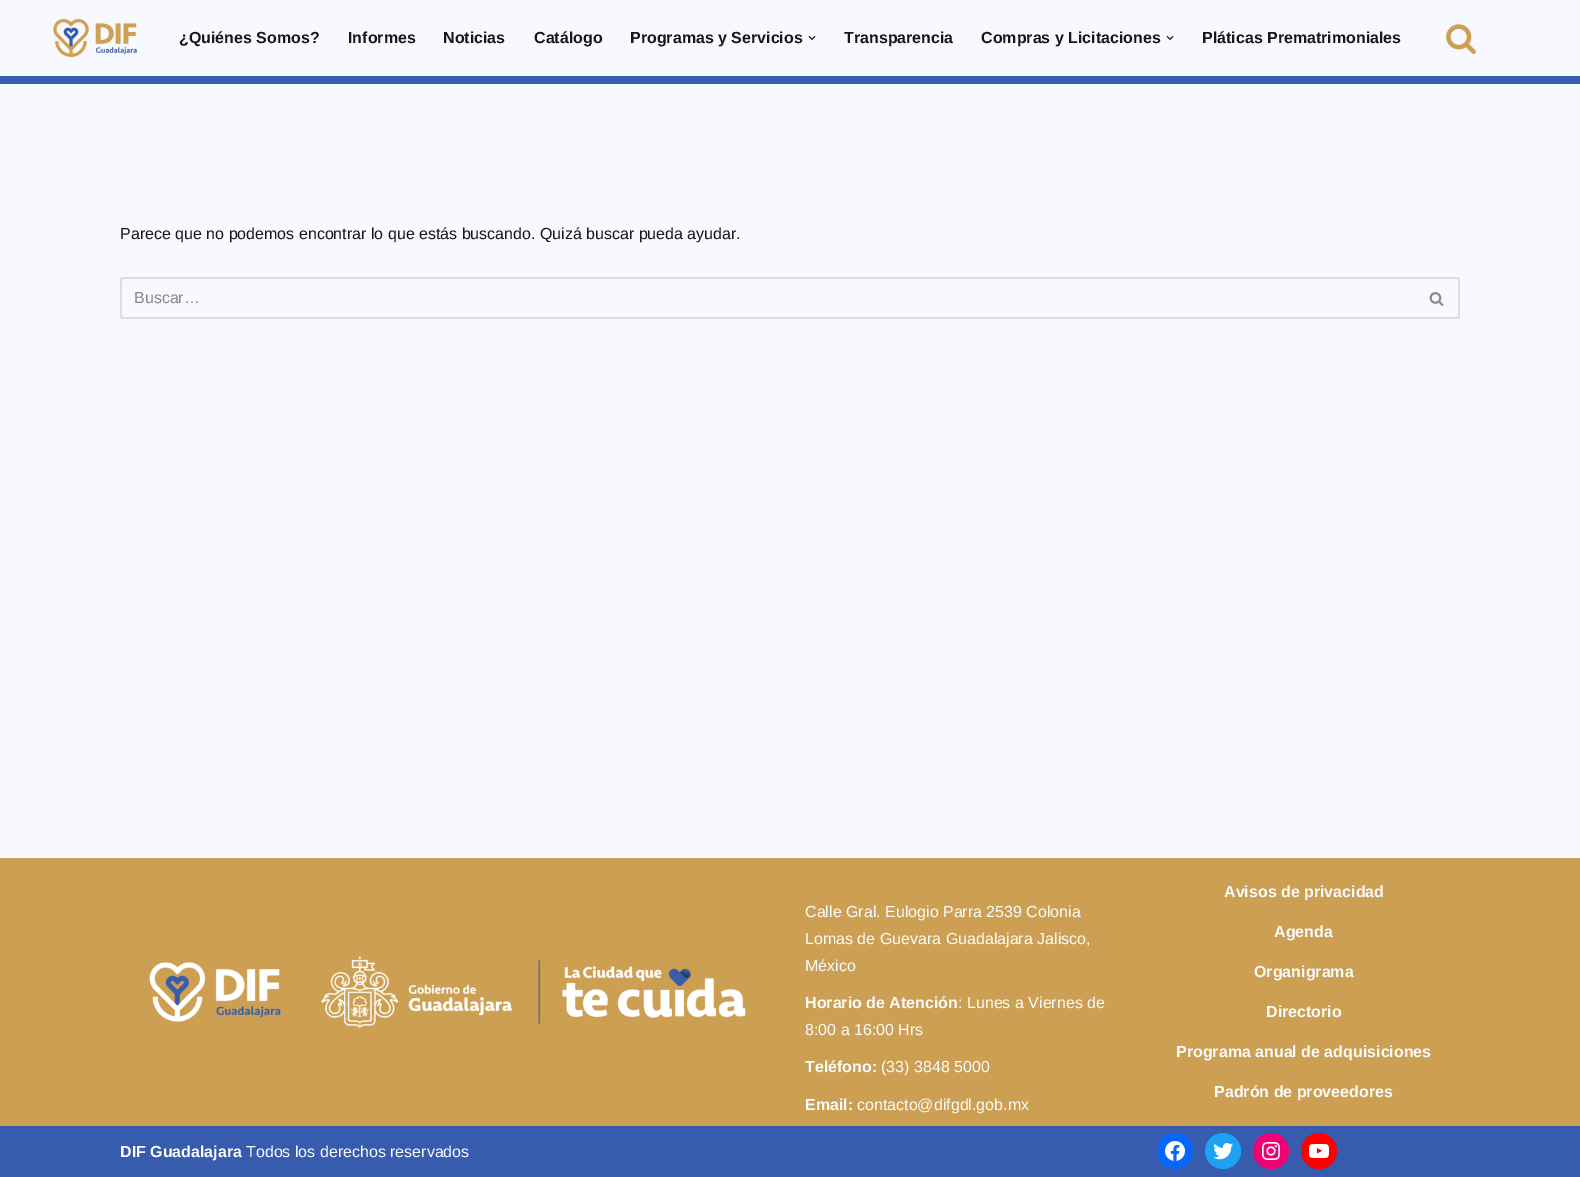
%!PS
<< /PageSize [1580 1177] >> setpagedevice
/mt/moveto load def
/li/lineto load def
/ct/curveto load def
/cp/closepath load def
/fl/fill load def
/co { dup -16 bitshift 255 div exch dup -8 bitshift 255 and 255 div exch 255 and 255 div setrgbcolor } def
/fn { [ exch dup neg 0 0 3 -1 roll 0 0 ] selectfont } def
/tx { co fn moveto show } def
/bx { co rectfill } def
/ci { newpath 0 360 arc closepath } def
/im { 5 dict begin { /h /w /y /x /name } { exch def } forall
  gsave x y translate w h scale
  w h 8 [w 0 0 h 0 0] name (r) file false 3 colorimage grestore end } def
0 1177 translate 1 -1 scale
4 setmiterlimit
0 0 1580 1177 16#F8F8FF bx
0 76 1580 8 16#385CAD bx
(media/1.raw) 53 18 84 40 im
(media/2.raw) 808 36 8 4 im
(media/2.raw) 1166 36 8 4 im
(media/3.raw) 1446 24 30 30 im
16#DDDDDD co
123 277 mt 1415 277 li 1415 319 li 123 319 li 121 319 120 318 120 316 ct 120 280 li 120 278 121 277 123 277 ct cp 123 279 mt 1415 279 li 1415 317 li 123 317 li 122 316 li 122 311 121 280 123 279 ct cp eofill
1415 277 mt 1457 277 li 1459 277 1460 278 1460 280 ct 1460 316 li 1460 318 1459 319 1457 319 ct 1415 319 li cp 1415 279 mt 1457 279 li 1458 279 1458 279 1458 280 ct 1458 316 li 1458 317 1458 317 1457 317 ct 1415 317 li cp eofill
(media/4.raw) 1429 292 15 14 im
0 858 1580 268 16#CC9F53 bx
(media/5.raw) 149 956 597 73 im
0 1126 1580 51 16#385CAD bx
16#0866FF co
1175 1151 18 ci fl
(media/6.raw) 1165 1141 20 20 im
16#1DA1F2 co
1223 1151 18 ci fl
(media/7.raw) 1213 1143 20 17 im
16#F00075 co
1271 1151 18 ci fl
(media/8.raw) 1262 1142 18 18 im
16#FF0000 co
1319 1151 18 ci fl
(media/9.raw) 1309 1144 20 14 im
(¿Quiénes Somos?) 179 43 /LiberationSans-Bold 16 16#14171C tx
(Informes) 348 43 /LiberationSans-Bold 16 16#14171C tx
(Noticias) 443 43 /LiberationSans-Bold 16 16#14171C tx
(Catálogo) 534 43 /LiberationSans-Bold 16 16#14171C tx
(Programas y Servicios) 630 43 /LiberationSans-Bold 16 16#14171C tx
(Transparencia) 844 43 /LiberationSans-Bold 16 16#14171C tx
(Compras y Licitaciones) 981 43 /LiberationSans-Bold 16 16#14171C tx
(Pláticas Prematrimoniales) 1202 43 /LiberationSans-Bold 16 16#14171C tx
(Parece que no podemos encontrar lo que estás buscando. Quizá buscar pueda ayudar.) 120 239 /LiberationSans-Regular 16 16#14171C tx
(Buscar…) 134 303 /LiberationSans-Regular 16 16#86888E tx
(Calle Gral. Eulogio Parra 2539 Colonia) 805 917 /LiberationSans-Regular 16 16#FAFBFD tx
(Lomas de Guevara Guadalajara Jalisco,) 805 944 /LiberationSans-Regular 16 16#FAFBFD tx
(México) 805 971 /LiberationSans-Regular 16 16#FAFBFD tx
(Horario de Atención) 805 1008 /LiberationSans-Bold 16 16#FAFBFD tx
(: Lunes a Viernes de) 958 1008 /LiberationSans-Regular 16 16#FAFBFD tx
(8:00 a 16:00 Hrs) 805 1035 /LiberationSans-Regular 16 16#FAFBFD tx
(Teléfono:) 805 1072 /LiberationSans-Bold 16 16#FAFBFD tx
(\(33\) 3848 5000) 881 1072 /LiberationSans-Regular 16 16#FAFBFD tx
(Email:) 805 1110 /LiberationSans-Bold 16 16#FAFBFD tx
(contacto@difgdl.gob.mx) 857 1110 /LiberationSans-Regular 16 16#FAFBFD tx
(Avisos de privacidad) 1224 897 /LiberationSans-Bold 16 16#FAFBFD tx
(Agenda) 1274 937 /LiberationSans-Bold 16 16#FAFBFD tx
(Organigrama) 1254 977 /LiberationSans-Bold 16 16#FAFBFD tx
(Directorio) 1266 1017 /LiberationSans-Bold 16 16#FAFBFD tx
(Programa anual de adquisiciones) 1176 1057 /LiberationSans-Bold 16 16#FAFBFD tx
(Padrón de proveedores) 1214 1097 /LiberationSans-Bold 16 16#FAFBFD tx
(DIF Guadalajara) 120 1157 /LiberationSans-Bold 16 16#FAFBFD tx
(Todos los derechos reservados) 246 1157 /LiberationSans-Regular 16 16#FAFBFD tx
showpage
